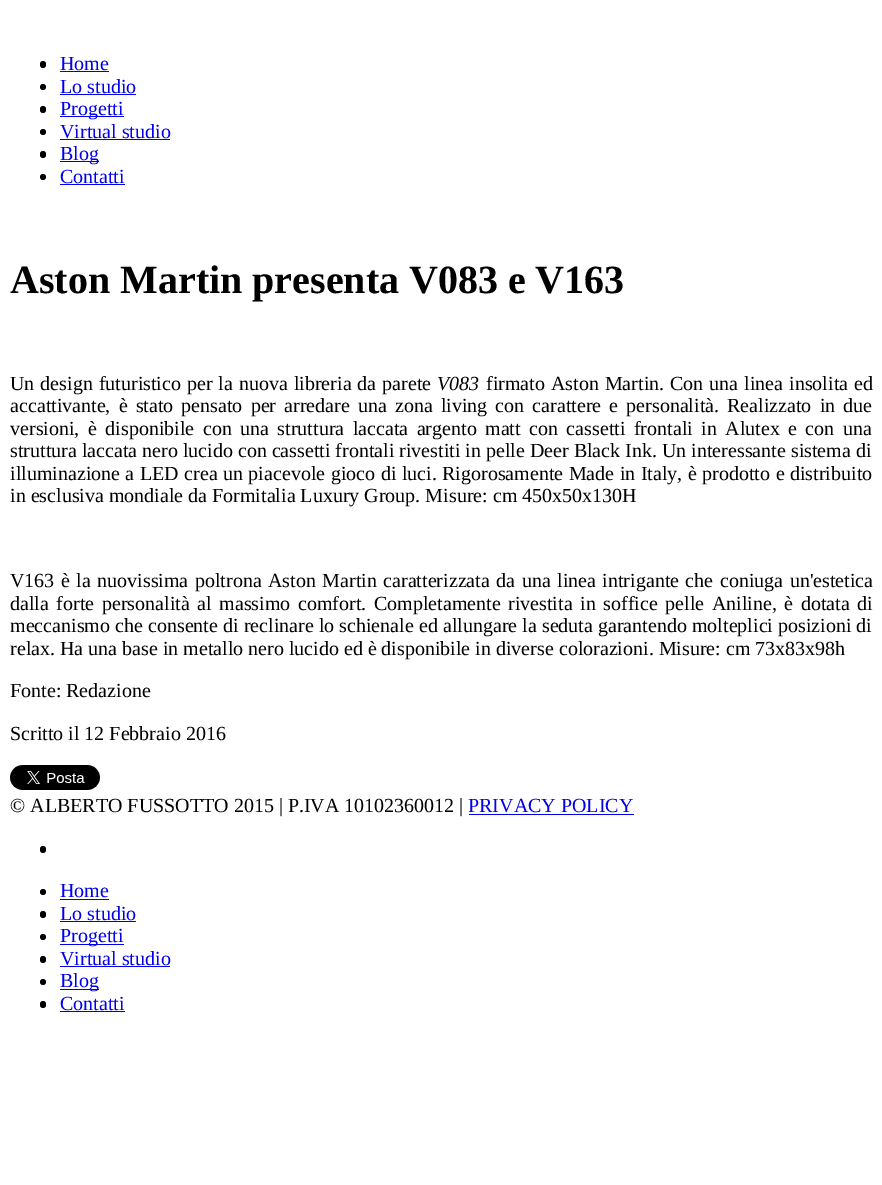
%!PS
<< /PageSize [882 1185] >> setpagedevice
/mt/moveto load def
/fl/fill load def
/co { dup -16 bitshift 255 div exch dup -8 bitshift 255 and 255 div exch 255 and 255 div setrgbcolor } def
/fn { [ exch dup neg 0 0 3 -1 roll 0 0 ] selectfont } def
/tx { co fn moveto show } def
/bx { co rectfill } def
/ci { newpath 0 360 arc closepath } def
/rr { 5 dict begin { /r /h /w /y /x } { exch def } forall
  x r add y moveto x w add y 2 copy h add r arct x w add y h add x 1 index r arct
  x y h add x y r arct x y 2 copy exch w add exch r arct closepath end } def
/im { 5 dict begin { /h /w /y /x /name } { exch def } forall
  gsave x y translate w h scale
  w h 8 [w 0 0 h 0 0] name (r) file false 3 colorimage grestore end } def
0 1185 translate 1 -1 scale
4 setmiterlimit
0 0 882 1185 16#FFFFFF bx
16#000000 co
40 61 6 7 3 rr fl
60 71 49 1 16#0000EE bx
16#000000 co
43 87 3 ci fl
60 94 76 1 16#0000EE bx
16#000000 co
40 106 6 7 3 rr fl
60 116 64 1 16#0000EE bx
16#000000 co
43 132 3 ci fl
60 139 110 1 16#0000EE bx
16#000000 co
40 151 6 7 3 rr fl
60 161 39 1 16#0000EE bx
16#000000 co
43 177 3 ci fl
60 184 65 1 16#0000EE bx
(media/1.raw) 10 765 90 25 im
469 814 165 1 16#0000EE bx
16#000000 co
40 846 6 7 3 rr fl
43 892 3 ci fl
60 899 49 1 16#0000EE bx
16#000000 co
40 911 6 7 3 rr fl
60 921 76 1 16#0000EE bx
16#000000 co
43 937 3 ci fl
60 944 64 1 16#0000EE bx
16#000000 co
40 956 6 7 3 rr fl
60 966 110 1 16#0000EE bx
16#000000 co
43 982 3 ci fl
60 989 39 1 16#0000EE bx
16#000000 co
40 1001 6 7 3 rr fl
60 1011 65 1 16#0000EE bx
(Home) 60 70 /LiberationSerif-Regular 20 16#0000EE tx
(Lo studio) 60 93 /LiberationSerif-Regular 20 16#0000EE tx
(Progetti) 60 115 /LiberationSerif-Regular 20 16#0000EE tx
(Virtual studio) 60 138 /LiberationSerif-Regular 20 16#0000EE tx
(Blog) 60 160 /LiberationSerif-Regular 20 16#0000EE tx
(Contatti) 60 183 /LiberationSerif-Regular 20 16#0000EE tx
(Aston Martin presenta V083 e V163) 10 293 /LiberationSerif-Bold 40 16#000000 tx
/LiberationSerif-Regular 20 fn
10 390 mt 1 0 32 (Un design futuristico per la nuova libreria da parete) widthshow
(V083) 437 390 /LiberationSerif-Italic 20 16#000000 tx
/LiberationSerif-Regular 20 fn
486 390 mt 1 0 32 (firmato Aston Martin. Con una linea insolita ed) widthshow
10 412 mt 3.1 0 32 (accattivante, è stato pensato per arredare una zona living con carattere e personalità. Realizzato in due) widthshow
10 435 mt 3.5 0 32 (versioni, è disponibile con una struttura laccata argento matt con cassetti frontali in Alutex e con una) widthshow
(struttura laccata nero lucido con cassetti frontali rivestiti in pelle Deer Black Ink. Un interessante sistema di) 10 457 /LiberationSerif-Regular 20 16#000000 tx
10 480 mt .5 0 32 (illuminazione a LED crea un piacevole gioco di luci. Rigorosamente Made in Italy, è prodotto e distribuito) widthshow
(in esclusiva mondiale da Formitalia Luxury Group. Misure: cm 450x50x130H) 10 502 /LiberationSerif-Regular 20 16#000000 tx
10 587 mt 1.5 0 32 (V163 è la nuovissima poltrona Aston Martin caratterizzata da una linea intrigante che coniuga un'estetica) widthshow
10 610 mt 2.6 0 32 (dalla forte personalità al massimo comfort. Completamente rivestita in soffice pelle Aniline, è dotata di) widthshow
10 632 mt .1 0 32 (meccanismo che consente di reclinare lo schienale ed allungare la seduta garantendo molteplici posizioni di) widthshow
(relax. Ha una base in metallo nero lucido ed è disponibile in diverse colorazioni. Misure: cm 73x83x98h) 10 655 /LiberationSerif-Regular 20 16#000000 tx
(Fonte: Redazione) 10 697 /LiberationSerif-Regular 20 16#000000 tx
(Scritto il 12 Febbraio 2016) 10 740 /LiberationSerif-Regular 20 16#000000 tx
(© ALBERTO FUSSOTTO 2015 | P.IVA 10102360012 |) 10 812 /LiberationSerif-Regular 20 16#000000 tx
(PRIVACY POLICY) 468 812 /LiberationSerif-Regular 20 16#0000EE tx
(Home) 60 897 /LiberationSerif-Regular 20 16#0000EE tx
(Lo studio) 60 920 /LiberationSerif-Regular 20 16#0000EE tx
(Progetti) 60 942 /LiberationSerif-Regular 20 16#0000EE tx
(Virtual studio) 60 965 /LiberationSerif-Regular 20 16#0000EE tx
(Blog) 60 987 /LiberationSerif-Regular 20 16#0000EE tx
(Contatti) 60 1010 /LiberationSerif-Regular 20 16#0000EE tx
showpage
